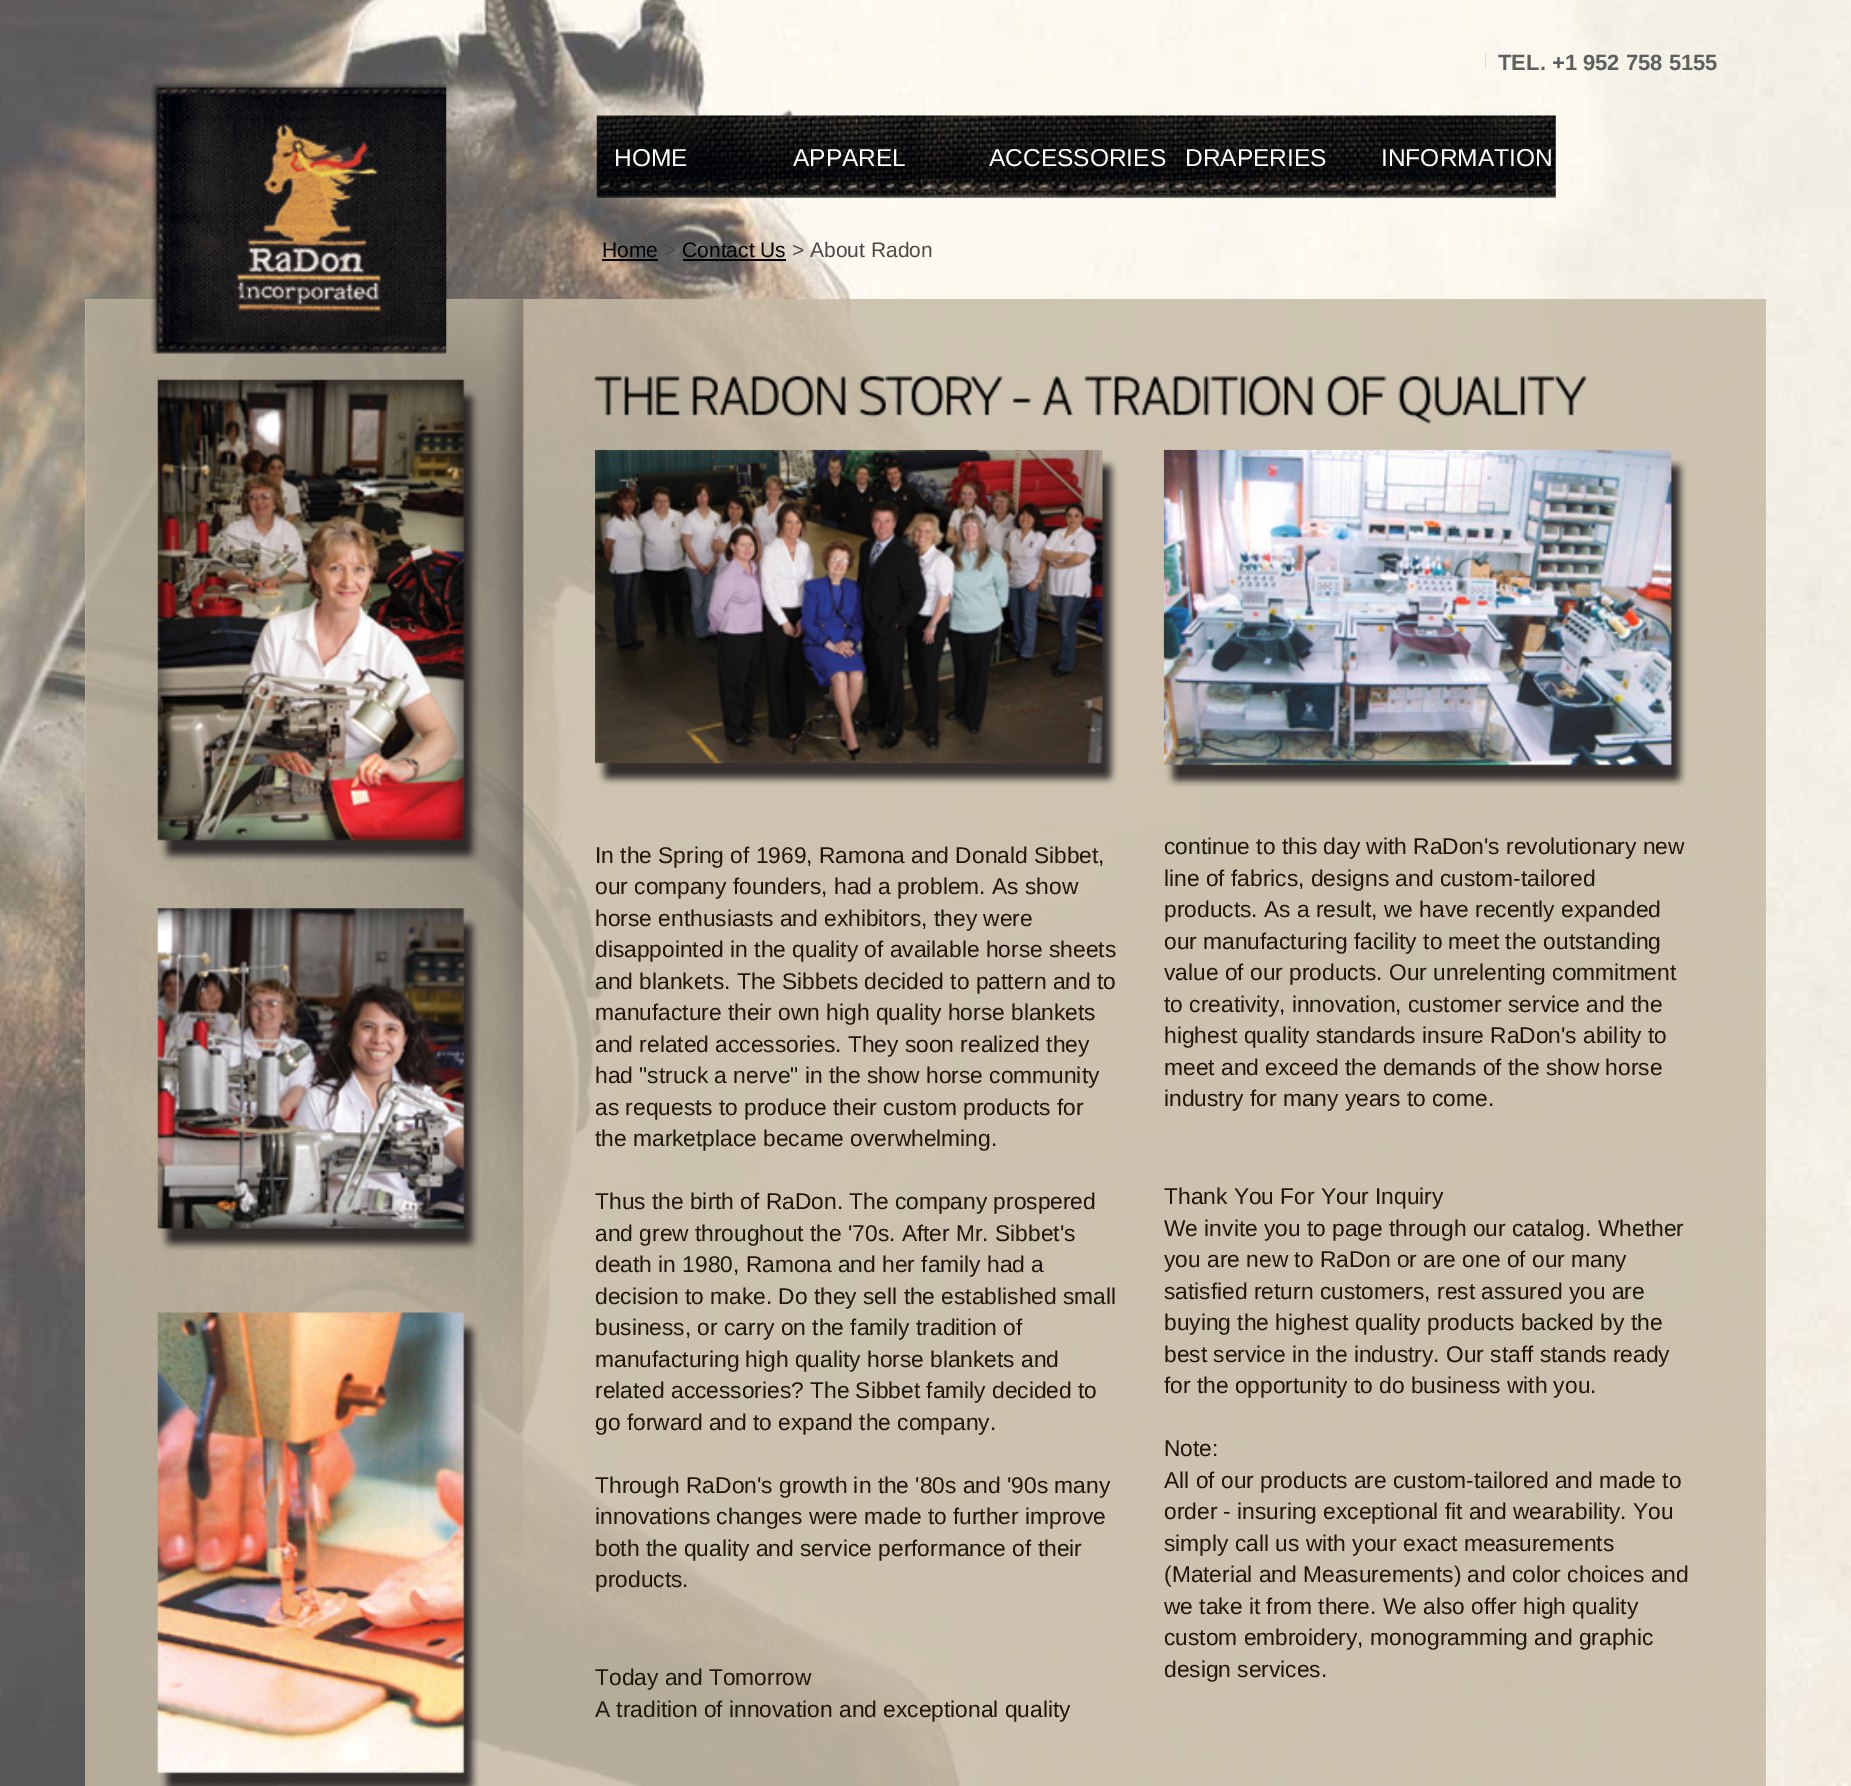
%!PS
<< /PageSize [1851 1786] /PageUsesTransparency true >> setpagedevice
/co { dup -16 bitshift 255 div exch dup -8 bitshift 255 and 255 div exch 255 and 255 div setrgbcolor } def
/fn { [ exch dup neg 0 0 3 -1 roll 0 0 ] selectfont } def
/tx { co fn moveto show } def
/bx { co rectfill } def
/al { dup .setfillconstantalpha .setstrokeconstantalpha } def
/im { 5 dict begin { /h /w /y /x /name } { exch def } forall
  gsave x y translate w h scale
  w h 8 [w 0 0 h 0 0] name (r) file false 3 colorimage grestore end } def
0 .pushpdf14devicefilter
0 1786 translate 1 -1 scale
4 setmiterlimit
0 0 1851 1786 16#FFFFFF bx
(media/1.raw) 0 0 1851 1786 im
(media/2.raw) 1485 52 1 17 im
0.85 al
85 299 1681 1487 16#C5BAA5 bx
1 al
(media/5.raw) 86 299 438 1260 im
(media/3.raw) 150 82 297 272 im
(media/4.raw) 596 115 960 83 im
602 259 56 2 16#000000 bx
683 259 103 2 16#000000 bx
(media/6.raw) 157 379 322 484 im
(media/7.raw) 157 908 322 343 im
(media/8.raw) 157 1312 322 474 im
(media/9.raw) 594 375 86 41 im
(media/10.raw) 692 375 154 42 im
(media/11.raw) 859 375 145 42 im
(media/12.raw) 1012 397 20 6 im
(media/13.raw) 1042 375 32 41 im
(media/14.raw) 1084 375 229 42 im
(media/15.raw) 1326 375 61 42 im
(media/16.raw) 1398 375 190 49 im
(media/17.raw) 595 449 523 336 im
(media/18.raw) 1163 449 524 338 im
(TEL. +1 952 758 5155) 1498 70 /LiberationSans-Bold 22 16#5E5E5E tx
(HOME) 614 166 /LiberationSans-Regular 24.5 16#FFFFFF tx
(APPAREL) 793 166 /LiberationSans-Regular 24.5 16#FFFFFF tx
(ACCESSORIES) 989 166 /LiberationSans-Regular 24.5 16#FFFFFF tx
(DRAPERIES) 1185 166 /LiberationSans-Regular 24.5 16#FFFFFF tx
(INFORMATION) 1381 166 /LiberationSans-Regular 24.5 16#FFFFFF tx
(Home) 602 257 /LiberationSans-Regular 21 16#000000 tx
(>) 664 257 /LiberationSans-Regular 21 16#4F4847 tx
(Contact Us) 682 257 /LiberationSans-Regular 21 16#000000 tx
(> About Radon) 792 257 /LiberationSans-Regular 21 16#4F4847 tx
(In the Spring of 1969, Ramona and Donald Sibbet,) 595 863 /LiberationSans-Regular 22.75 16#20160D tx
(our company founders, had a problem. As show) 595 894 /LiberationSans-Regular 22.75 16#20160D tx
(horse enthusiasts and exhibitors, they were) 595 926 /LiberationSans-Regular 22.75 16#20160D tx
(disappointed in the quality of available horse sheets) 595 957 /LiberationSans-Regular 22.75 16#20160D tx
(and blankets. The Sibbets decided to pattern and to) 595 989 /LiberationSans-Regular 22.75 16#20160D tx
(manufacture their own high quality horse blankets) 595 1020 /LiberationSans-Regular 22.75 16#20160D tx
(and related accessories. They soon realized they) 595 1052 /LiberationSans-Regular 22.75 16#20160D tx
(had "struck a nerve" in the show horse community) 595 1083 /LiberationSans-Regular 22.75 16#20160D tx
(as requests to produce their custom products for) 595 1115 /LiberationSans-Regular 22.75 16#20160D tx
(the marketplace became overwhelming.) 595 1146 /LiberationSans-Regular 22.75 16#20160D tx
(Thus the birth of RaDon. The company prospered) 595 1209 /LiberationSans-Regular 22.75 16#20160D tx
(and grew throughout the '70s. After Mr. Sibbet's) 595 1241 /LiberationSans-Regular 22.75 16#20160D tx
(death in 1980, Ramona and her family had a) 595 1272 /LiberationSans-Regular 22.75 16#20160D tx
(decision to make. Do they sell the established small) 595 1304 /LiberationSans-Regular 22.75 16#20160D tx
(business, or carry on the family tradition of) 595 1335 /LiberationSans-Regular 22.75 16#20160D tx
(manufacturing high quality horse blankets and) 595 1367 /LiberationSans-Regular 22.75 16#20160D tx
(related accessories? The Sibbet family decided to) 595 1398 /LiberationSans-Regular 22.75 16#20160D tx
(go forward and to expand the company.) 595 1430 /LiberationSans-Regular 22.75 16#20160D tx
(Through RaDon's growth in the '80s and '90s many) 595 1493 /LiberationSans-Regular 22.75 16#20160D tx
(innovations changes were made to further improve) 595 1524 /LiberationSans-Regular 22.75 16#20160D tx
(both the quality and service performance of their) 595 1556 /LiberationSans-Regular 22.75 16#20160D tx
(products.) 595 1587 /LiberationSans-Regular 22.75 16#20160D tx
(Today and Tomorrow) 595 1685 /LiberationSans-Regular 22.75 16#20160D tx
(A tradition of innovation and exceptional quality) 595 1717 /LiberationSans-Regular 22.75 16#20160D tx
(continue to this day with RaDon's revolutionary new) 1164 854 /LiberationSans-Regular 22.75 16#20160D tx
(line of fabrics, designs and custom-tailored) 1164 886 /LiberationSans-Regular 22.75 16#20160D tx
(products. As a result, we have recently expanded) 1164 917 /LiberationSans-Regular 22.75 16#20160D tx
(our manufacturing facility to meet the outstanding) 1164 949 /LiberationSans-Regular 22.75 16#20160D tx
(value of our products. Our unrelenting commitment) 1164 980 /LiberationSans-Regular 22.75 16#20160D tx
(to creativity, innovation, customer service and the) 1164 1012 /LiberationSans-Regular 22.75 16#20160D tx
(highest quality standards insure RaDon's ability to) 1164 1043 /LiberationSans-Regular 22.75 16#20160D tx
(meet and exceed the demands of the show horse) 1164 1075 /LiberationSans-Regular 22.75 16#20160D tx
(industry for many years to come.) 1164 1106 /LiberationSans-Regular 22.75 16#20160D tx
(Thank You For Your Inquiry) 1164 1204 /LiberationSans-Regular 22.75 16#20160D tx
(We invite you to page through our catalog. Whether) 1164 1236 /LiberationSans-Regular 22.75 16#20160D tx
(you are new to RaDon or are one of our many) 1164 1267 /LiberationSans-Regular 22.75 16#20160D tx
(satisfied return customers, rest assured you are) 1164 1299 /LiberationSans-Regular 22.75 16#20160D tx
(buying the highest quality products backed by the) 1164 1330 /LiberationSans-Regular 22.75 16#20160D tx
(best service in the industry. Our staff stands ready) 1164 1362 /LiberationSans-Regular 22.75 16#20160D tx
(for the opportunity to do business with you.) 1164 1393 /LiberationSans-Regular 22.75 16#20160D tx
(Note:) 1164 1456 /LiberationSans-Regular 22.75 16#20160D tx
(All of our products are custom-tailored and made to) 1164 1488 /LiberationSans-Regular 22.75 16#20160D tx
(order - insuring exceptional fit and wearability. You) 1164 1519 /LiberationSans-Regular 22.75 16#20160D tx
(simply call us with your exact measurements) 1164 1551 /LiberationSans-Regular 22.75 16#20160D tx
(\(Material and Measurements\) and color choices and) 1164 1582 /LiberationSans-Regular 22.75 16#20160D tx
(we take it from there. We also offer high quality) 1164 1614 /LiberationSans-Regular 22.75 16#20160D tx
(custom embroidery, monogramming and graphic) 1164 1645 /LiberationSans-Regular 22.75 16#20160D tx
(design services.) 1164 1677 /LiberationSans-Regular 22.75 16#20160D tx
.poppdf14devicefilter showpage
